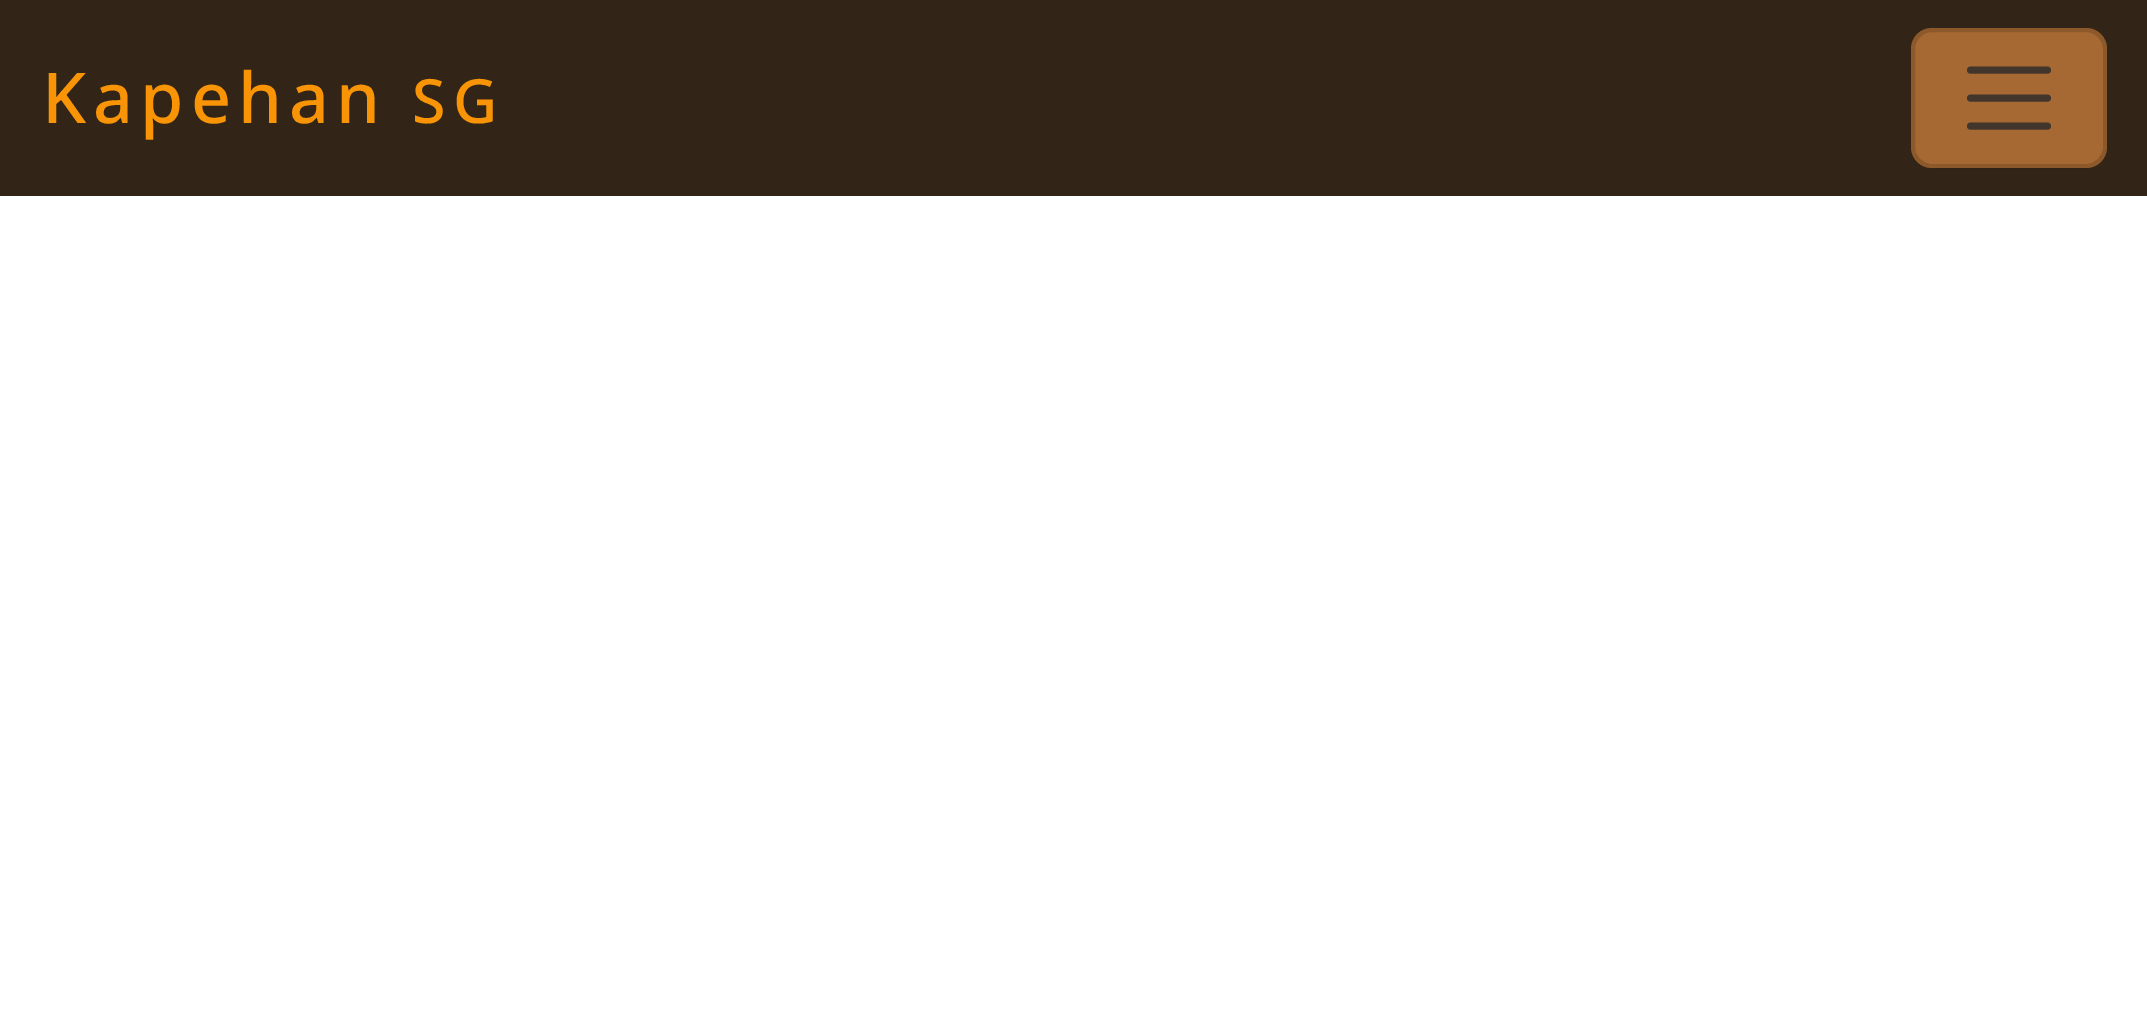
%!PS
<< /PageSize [2147 1013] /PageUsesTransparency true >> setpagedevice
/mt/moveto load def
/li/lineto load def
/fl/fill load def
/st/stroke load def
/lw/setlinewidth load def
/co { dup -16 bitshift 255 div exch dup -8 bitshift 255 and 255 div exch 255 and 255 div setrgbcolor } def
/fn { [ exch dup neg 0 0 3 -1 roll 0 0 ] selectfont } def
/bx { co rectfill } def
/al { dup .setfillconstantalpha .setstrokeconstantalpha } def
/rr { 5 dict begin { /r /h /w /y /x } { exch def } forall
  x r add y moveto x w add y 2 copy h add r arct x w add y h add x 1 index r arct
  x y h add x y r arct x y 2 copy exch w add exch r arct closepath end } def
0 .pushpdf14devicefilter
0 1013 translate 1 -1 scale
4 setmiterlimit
0 0 2147 1013 16#FFFFFF bx
0 0 2147 196 16#322416 bx
16#A66933 co
1911 28 196 140 21 rr fl
0.15 al
16#000000 co
4 lw
1913 30 192 136 19 rr st
1 al
16#42362C co
7 lw
1 setlinecap
1970.5 70 mt 2047.5 70 li 1970.5 98 mt 2047.5 98 li 1970.5 126 mt 2047.5 126 li st
/NotoSans-Medium 70 fn
16#F89406 co
42 123 mt 7 0 (Kapehan) ashow
/NotoSans-Medium 61 fn
412 123 mt 7 0 (SG) ashow
.poppdf14devicefilter showpage
